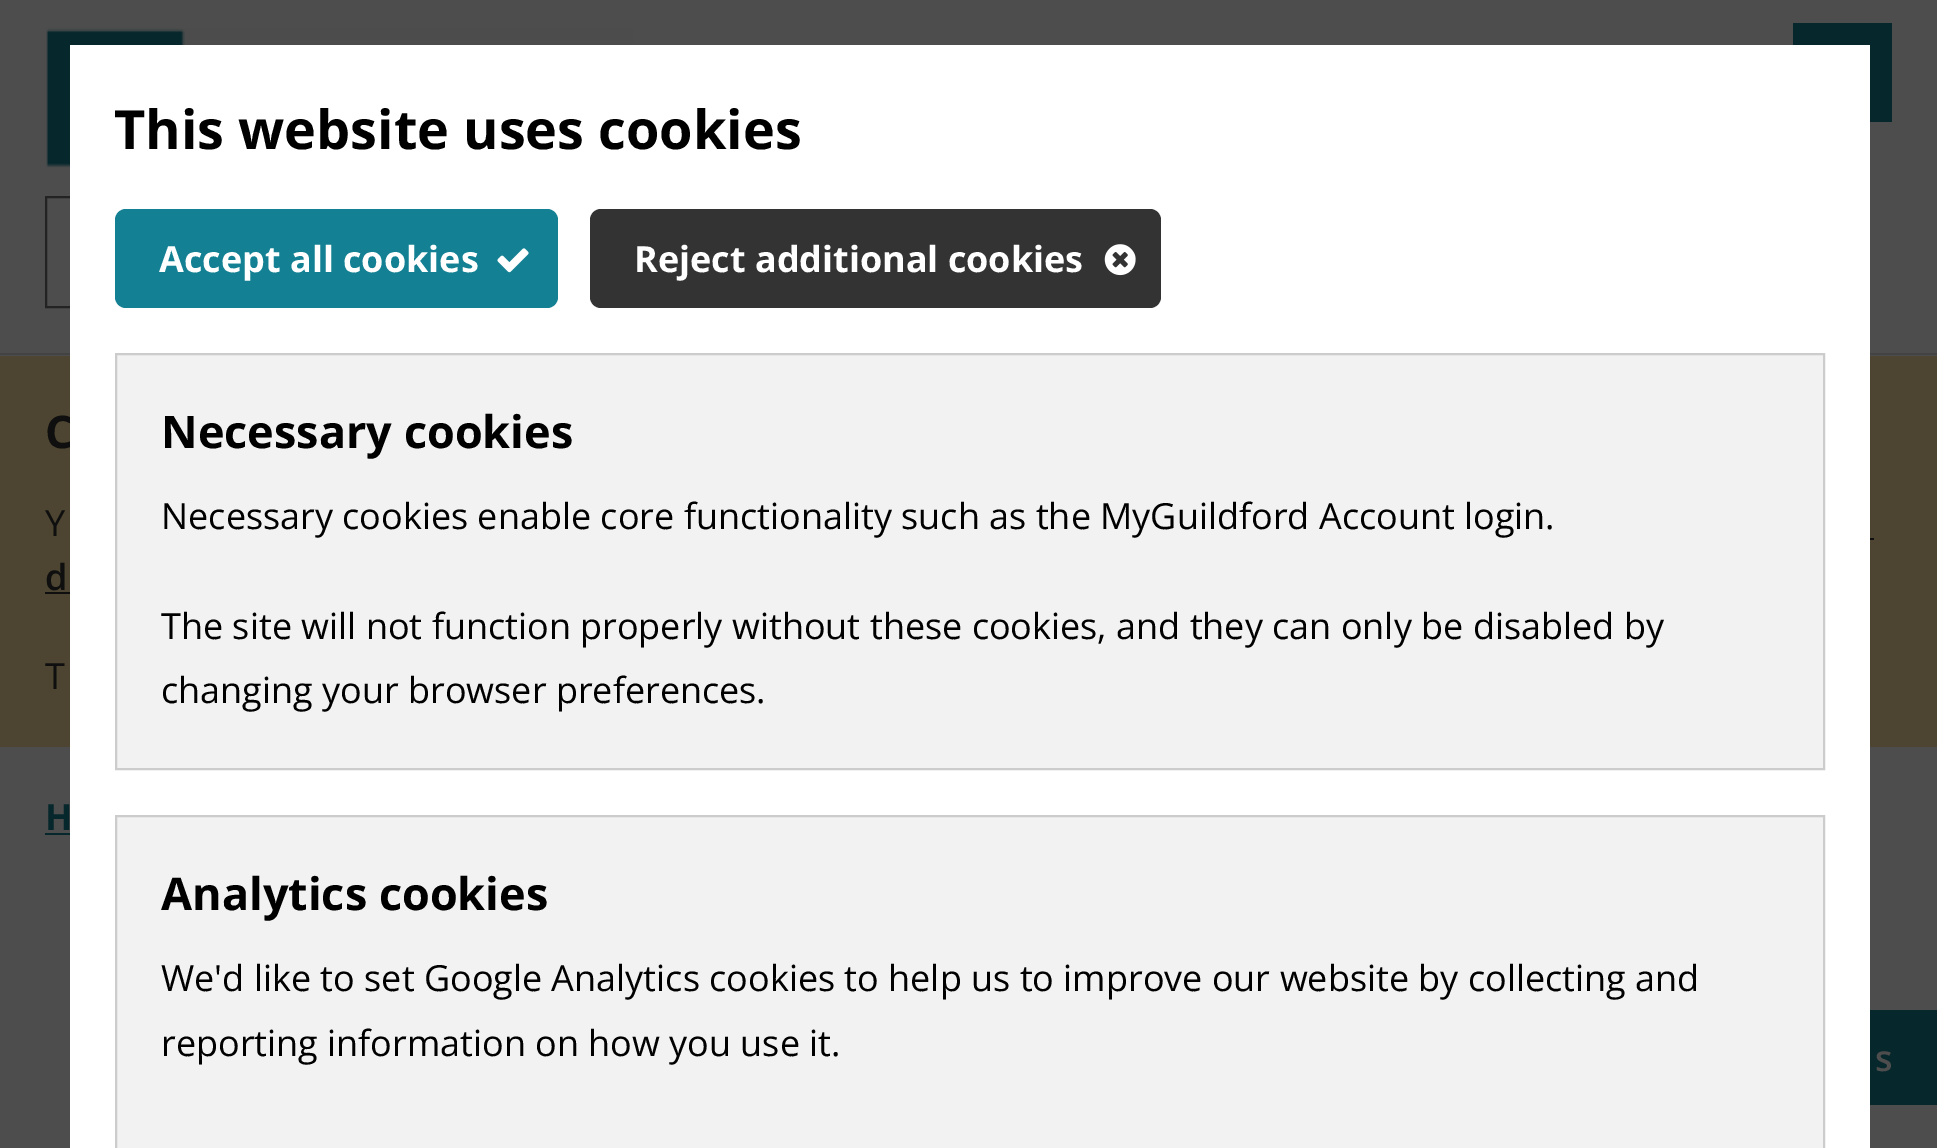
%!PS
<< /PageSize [1937 1148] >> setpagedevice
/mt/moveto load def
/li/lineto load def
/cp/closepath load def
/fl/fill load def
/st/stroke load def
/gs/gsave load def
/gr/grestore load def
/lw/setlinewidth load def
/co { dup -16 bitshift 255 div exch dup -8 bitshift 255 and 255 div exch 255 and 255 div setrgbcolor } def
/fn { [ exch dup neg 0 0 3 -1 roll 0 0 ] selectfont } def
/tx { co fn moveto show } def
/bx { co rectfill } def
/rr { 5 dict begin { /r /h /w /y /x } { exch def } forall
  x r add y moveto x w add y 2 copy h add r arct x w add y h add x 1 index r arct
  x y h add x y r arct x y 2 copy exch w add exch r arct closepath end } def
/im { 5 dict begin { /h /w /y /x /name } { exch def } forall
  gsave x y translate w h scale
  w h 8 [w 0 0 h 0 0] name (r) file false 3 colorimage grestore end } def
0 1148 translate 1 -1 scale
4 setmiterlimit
0 0 1937 1148 16#4D4D4D bx
0 353 1937 2 16#434343 bx
(media/1.raw) 46 28 587 140 im
1793 23 99 99 16#06272C bx
16#232323 co
2 lw
46 197 1575 110 rectstroke
0 356 1937 391 16#4D4531 bx
1870 538 4 2 16#0F0F0F bx
45 592 25 2 16#0F0F0F bx
45 833 25 2 16#06272C bx
1870 1010 67 95 16#06272C bx
(C) 45 448 /OpenSans-Bold 45 16#0F0F0F tx
(Y) 45 536 /OpenSans-Regular 36 16#0F0F0F tx
(d) 45 590 /OpenSans-SemiBold 36 16#0F0F0F tx
(T) 45 689 /OpenSans-Regular 36 16#0F0F0F tx
(H) 45 830 /OpenSans-Bold 36 16#06272C tx
70 45 1800 1103 16#FFFFFF bx
(This website uses cookies) 114 149 /OpenSans-Bold 54 16#000000 tx
16#138193 co
115 209 443 99 11 rr fl
(Accept all cookies) 159 272 /OpenSans-Bold 36 16#FFFFFF tx
(media/2.raw) 497 248 32 25 im
16#333333 co
590 209 571 99 11 rr fl
(Reject additional cookies) 634 272 /OpenSans-Bold 36 16#FFFFFF tx
(media/3.raw) 1104 244 32 32 im
16#F2F2F2 co
116 354 mt 1824 354 li 1824 769 li 116 769 li cp gs fl gr
16#CCCCCC co
st
(Necessary cookies) 161 448 /OpenSans-Bold 45 16#000000 tx
(Necessary cookies enable core functionality such as the MyGuildford Account login.) 161 529 /OpenSans-Regular 36 16#000000 tx
(The site will not function properly without these cookies, and they can only be disabled by) 161 639 /OpenSans-Regular 36 16#000000 tx
(changing your browser preferences.) 161 703 /OpenSans-Regular 36 16#000000 tx
16#F2F2F2 co
116 816 mt 1824 816 li 1824 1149 li 116 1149 li cp gs fl gr
16#CCCCCC co
st
(Analytics cookies) 161 910 /OpenSans-Bold 45 16#000000 tx
(We'd like to set Google Analytics cookies to help us to improve our website by collecting and) 161 991 /OpenSans-Regular 36 16#000000 tx
(reporting information on how you use it.) 161 1056 /OpenSans-Regular 36 16#000000 tx
(s) 1875 1071 /OpenSans-SemiBold 36 16#4D4D4D tx
showpage
